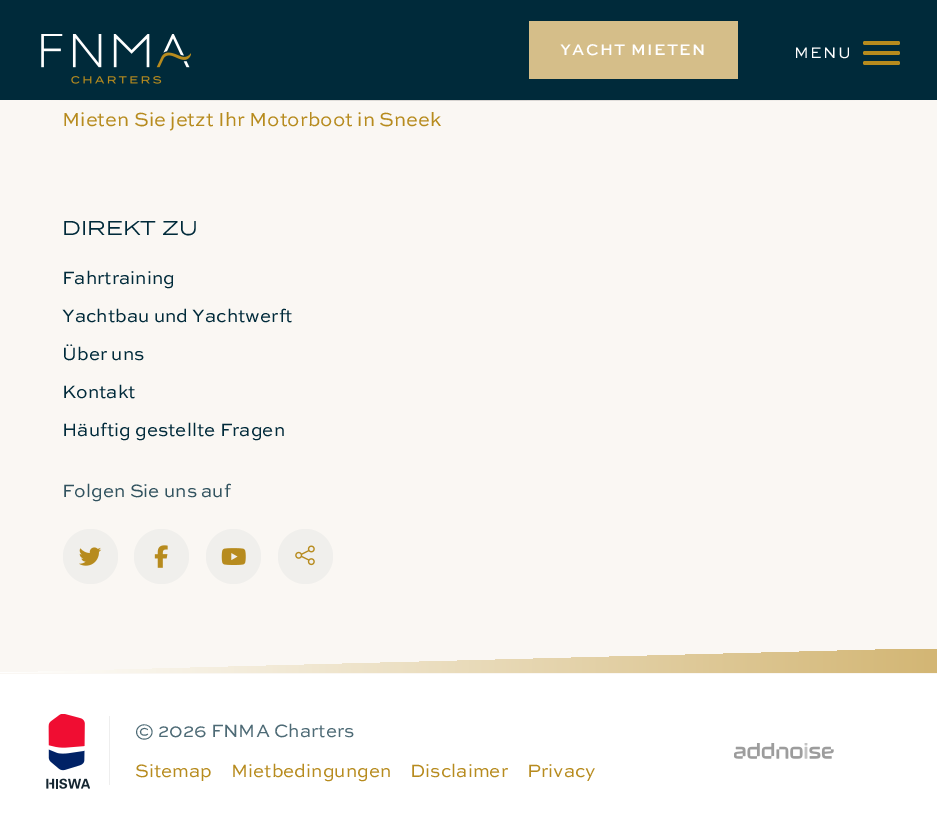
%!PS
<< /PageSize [937 828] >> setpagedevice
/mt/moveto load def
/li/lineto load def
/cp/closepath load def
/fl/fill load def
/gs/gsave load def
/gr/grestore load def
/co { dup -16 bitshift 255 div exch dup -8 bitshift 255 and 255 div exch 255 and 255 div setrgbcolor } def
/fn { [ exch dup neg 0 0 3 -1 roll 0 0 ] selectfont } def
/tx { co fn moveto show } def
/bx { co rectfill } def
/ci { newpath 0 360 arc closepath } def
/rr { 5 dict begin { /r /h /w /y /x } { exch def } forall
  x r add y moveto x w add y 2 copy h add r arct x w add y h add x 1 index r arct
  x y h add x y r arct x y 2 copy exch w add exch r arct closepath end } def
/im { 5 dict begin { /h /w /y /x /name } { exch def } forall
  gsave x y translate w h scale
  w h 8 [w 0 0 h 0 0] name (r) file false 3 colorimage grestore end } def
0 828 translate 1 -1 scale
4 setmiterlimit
0 0 937 828 16#FFFFFF bx
0 0 937 100 16#002A3A bx
(media/1.raw) 41 34 150 50 im
529 21 209 58 16#D5BE89 bx
16#B78B1E co
863 51 37 4 2 rr fl
863 41 37 4 2 rr fl
863 61 37 4 2 rr fl
gs 0 100 mt 937 100 li 937 101 li 0 101 li cp clip newpath
<< /ShadingType 2 /ColorSpace /DeviceRGB /Coords [0 101 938 101] /Extend [true true] /Function << /FunctionType 3 /Domain [0 1] /Functions [<< /FunctionType 2 /Domain [0 1] /C0 [.98 .969 .953] /C1 [.98 .969 .953] /N 1 >> << /FunctionType 2 /Domain [0 1] /C0 [.98 .969 .953] /C1 [.835 .824 .812] /N 1 >> << /FunctionType 2 /Domain [0 1] /C0 [.835 .824 .812] /C1 [.98 .969 .953] /N 1 >> << /FunctionType 2 /Domain [0 1] /C0 [.98 .969 .953] /C1 [.98 .969 .953] /N 1 >>] /Bounds [.05 .5 .95] /Encode [0 1 0 1 0 1 0 1] >> >> shfill gr
0 101 937 573 16#FAF7F3 bx
16#F0EFEC co
90.5 556.5 27.5 ci fl
(media/2.raw) 79 547 23 19 im
161.5 556.5 27.5 ci fl
(media/3.raw) 154 545 14 23 im
233.5 556.5 27.5 ci fl
(media/4.raw) 221 548 25 17 im
305.5 556.5 27.5 ci fl
(media/5.raw) 295 545 20 21 im
gs 0 673 mt 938 673 li 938 649 li 914 649 li cp clip newpath
<< /ShadingType 2 /ColorSpace /DeviceRGB /Coords [0 661 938 661] /Extend [true true] /Function << /FunctionType 2 /Domain [0 1] /C0 [1 1 1] /C1 [.827 .714 .455] /N 1 >> >> shfill gr
(media/6.raw) 46 714 44 75 im
109 716 1 69 16#EEEEEE bx
(media/7.raw) 734 743 100 16 im
/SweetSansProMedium-Medium 16.25 fn
16#FFFFFF co
560 55 mt 1.25 0 (YACHT MIETEN) ashow
/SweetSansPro-Regular 16.25 fn
794 58 mt 1.25 0 (MENU) ashow
(Mieten Sie jetzt Ihr Motorboot in Sneek) 62 126 /SweetSansPro-Regular 20 16#B78B1E tx
(DIREKT ZU) 62 235 /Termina-Regular 20 16#002A3A tx
(Fahrtraining) 62 284 /SweetSansPro-Regular 18.75 16#002A3A tx
(Yachtbau und Yachtwerft) 62 322 /SweetSansPro-Regular 18.75 16#002A3A tx
(Über uns) 62 360 /SweetSansPro-Regular 18.75 16#002A3A tx
(Kontakt) 62 398 /SweetSansPro-Regular 18.75 16#002A3A tx
(Häuftig gestellte Fragen) 62 436 /SweetSansPro-Regular 18.75 16#002A3A tx
(Folgen Sie uns auf) 62 497 /SweetSansPro-Regular 18.75 16#32535F tx
(© 2026 FNMA Charters) 135 737 /SweetSansPro-Regular 18.75 16#4D6A75 tx
(Sitemap) 135 777 /SweetSansPro-Regular 18.75 16#B78B1E tx
(Mietbedingungen) 231 777 /SweetSansPro-Regular 18.75 16#B78B1E tx
(Disclaimer) 410 777 /SweetSansPro-Regular 18.75 16#B78B1E tx
(Privacy) 527 777 /SweetSansPro-Regular 18.75 16#B78B1E tx
showpage
